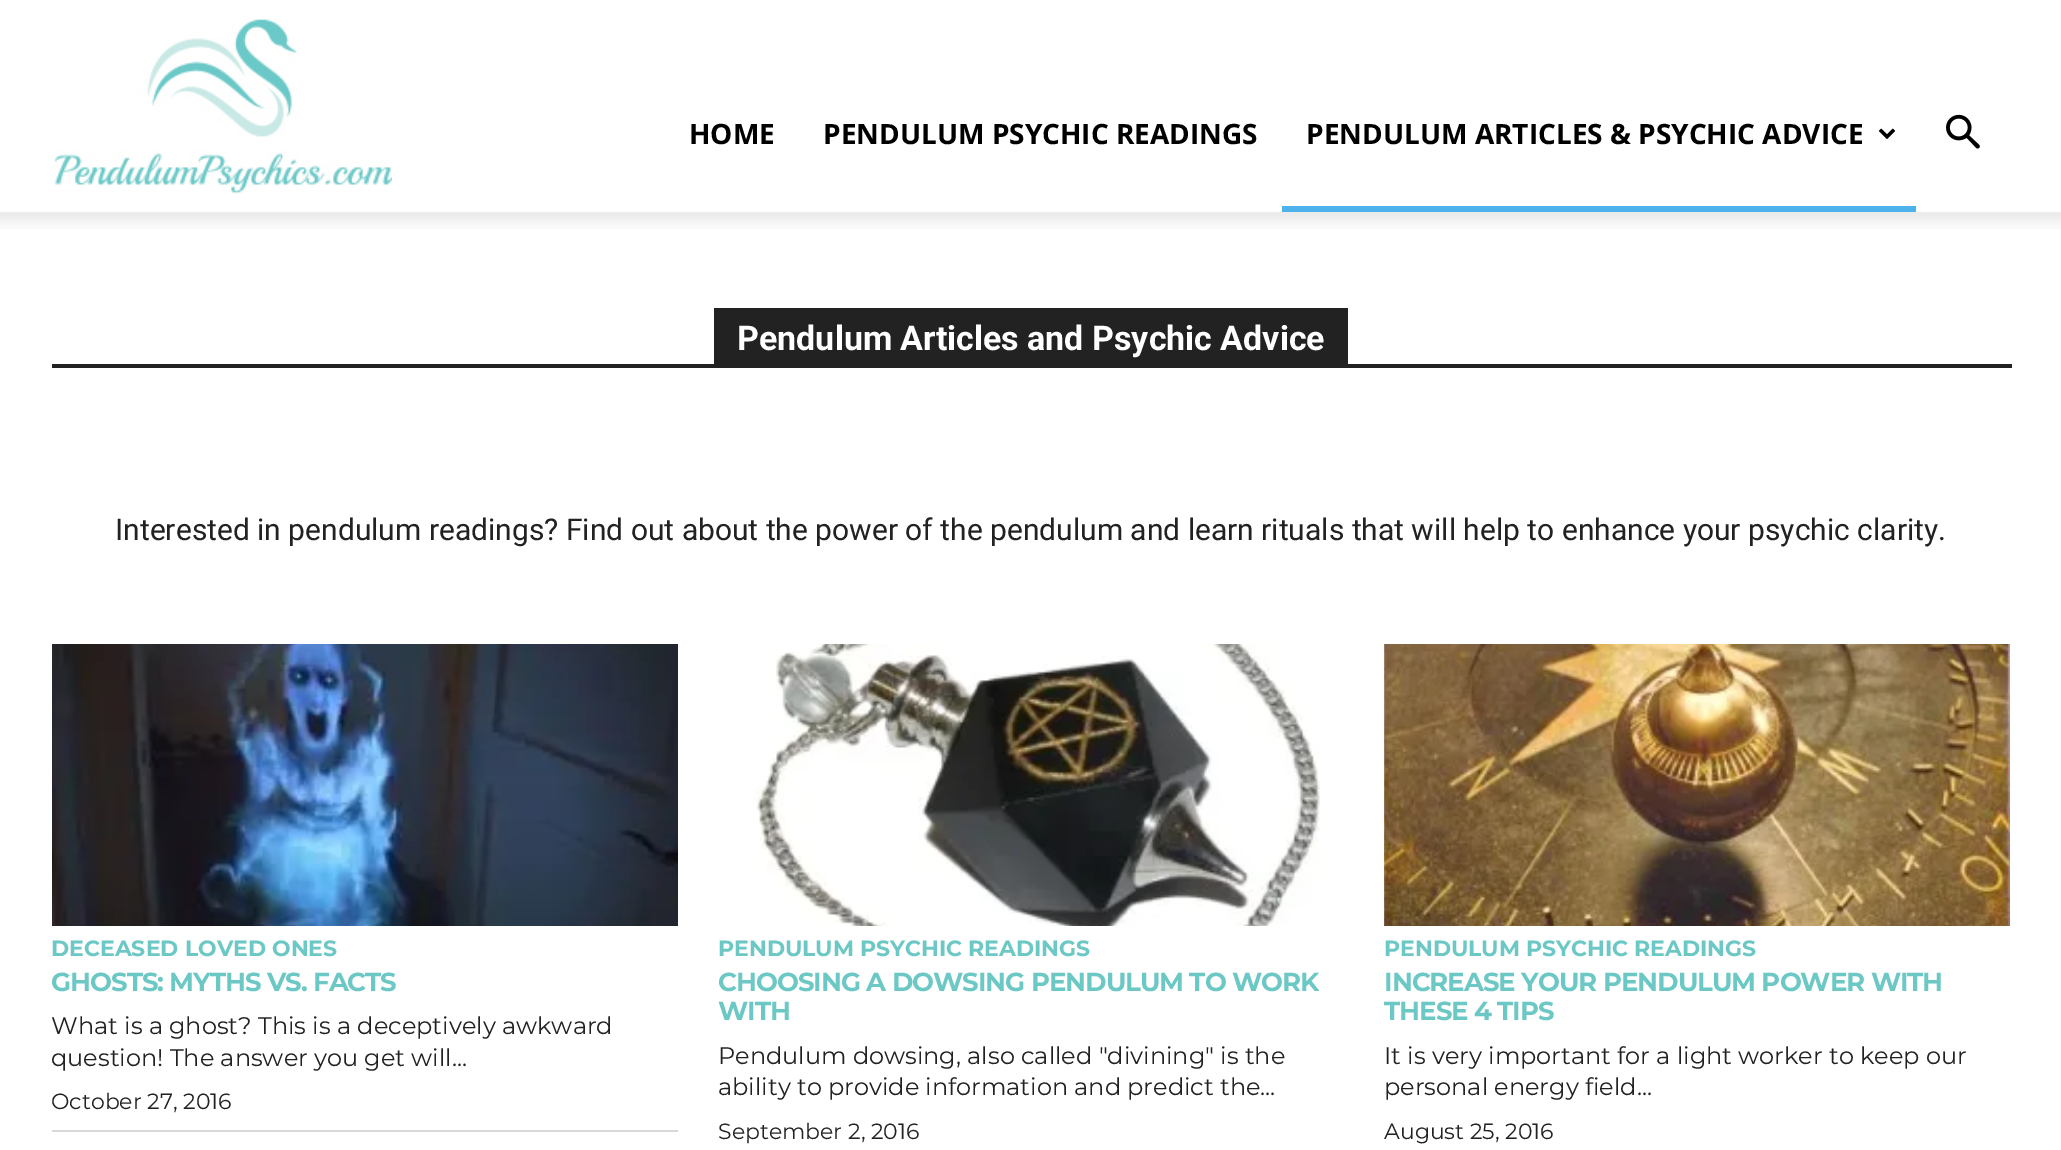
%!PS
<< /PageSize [2061 1150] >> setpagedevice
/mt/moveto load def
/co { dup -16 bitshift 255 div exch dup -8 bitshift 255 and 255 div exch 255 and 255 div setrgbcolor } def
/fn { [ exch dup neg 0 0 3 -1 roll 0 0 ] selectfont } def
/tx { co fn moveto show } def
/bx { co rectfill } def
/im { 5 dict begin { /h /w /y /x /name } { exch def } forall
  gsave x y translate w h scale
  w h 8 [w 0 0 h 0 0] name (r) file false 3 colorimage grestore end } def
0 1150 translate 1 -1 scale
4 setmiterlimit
0 0 2061 1150 16#FFFFFF bx
(media/1.raw) 54 19 338 175 im
(media/2.raw) 1879 128 16 11 im
1282 206 634 6 16#4DB2EC bx
(media/3.raw) 1946 114 34 35 im
(media/4.raw) 0 212 2061 17 im
52 364 1960 4 16#222222 bx
714 308 634 56 16#222222 bx
(media/5.raw) 52 644 626 282 im
52 1130 626 2 16#D8D8D8 bx
(media/6.raw) 754 644 566 282 im
(media/7.raw) 1384 644 626 282 im
(HOME) 689 144 /OpenSans-Bold 28 16#000000 tx
(PENDULUM PSYCHIC READINGS) 823 144 /OpenSans-Bold 28 16#000000 tx
(PENDULUM ARTICLES & PSYCHIC ADVICE) 1306 144 /OpenSans-Bold 28 16#000000 tx
(Pendulum Articles and Psychic Advice) 737 350 /Roboto-Bold 34 16#FFFFFF tx
(Interested in pendulum readings? Find out about the power of the pendulum and learn rituals that will help to enhance your psychic clarity.) 115 540 /Roboto-Regular 30 16#222222 tx
(DECEASED LOVED ONES) 51 956 /Montserrat-Bold 22 16#6CC8C5 tx
/Montserrat-Bold 26 fn
51 991 mt -1 0 (GHOSTS: MYTHS VS. FACTS) ashow
(What is a ghost? This is a deceptively awkward) 51 1034 /Montserrat-Regular 24 16#222222 tx
(question! The answer you get will...) 51 1066 /Montserrat-Regular 24 16#222222 tx
(October 27, 2016) 51 1109 /Montserrat-Regular 22 16#222222 tx
(PENDULUM PSYCHIC READINGS) 718 956 /Montserrat-Bold 22 16#6CC8C5 tx
/Montserrat-Bold 26 fn
718 991 mt -1 0 (CHOOSING A DOWSING PENDULUM TO WORK) ashow
718 1020 mt -1 0 (WITH) ashow
(Pendulum dowsing, also called "divining" is the) 718 1064 /Montserrat-Regular 24 16#222222 tx
(ability to provide information and predict the...) 718 1095 /Montserrat-Regular 24 16#222222 tx
(September 2, 2016) 718 1139 /Montserrat-Regular 22 16#222222 tx
(PENDULUM PSYCHIC READINGS) 1384 956 /Montserrat-Bold 22 16#6CC8C5 tx
/Montserrat-Bold 26 fn
1384 991 mt -1 0 (INCREASE YOUR PENDULUM POWER WITH) ashow
1384 1020 mt -1 0 (THESE 4 TIPS) ashow
(It is very important for a light worker to keep our) 1384 1064 /Montserrat-Regular 24 16#222222 tx
(personal energy field...) 1384 1095 /Montserrat-Regular 24 16#222222 tx
(August 25, 2016) 1384 1139 /Montserrat-Regular 22 16#222222 tx
showpage
